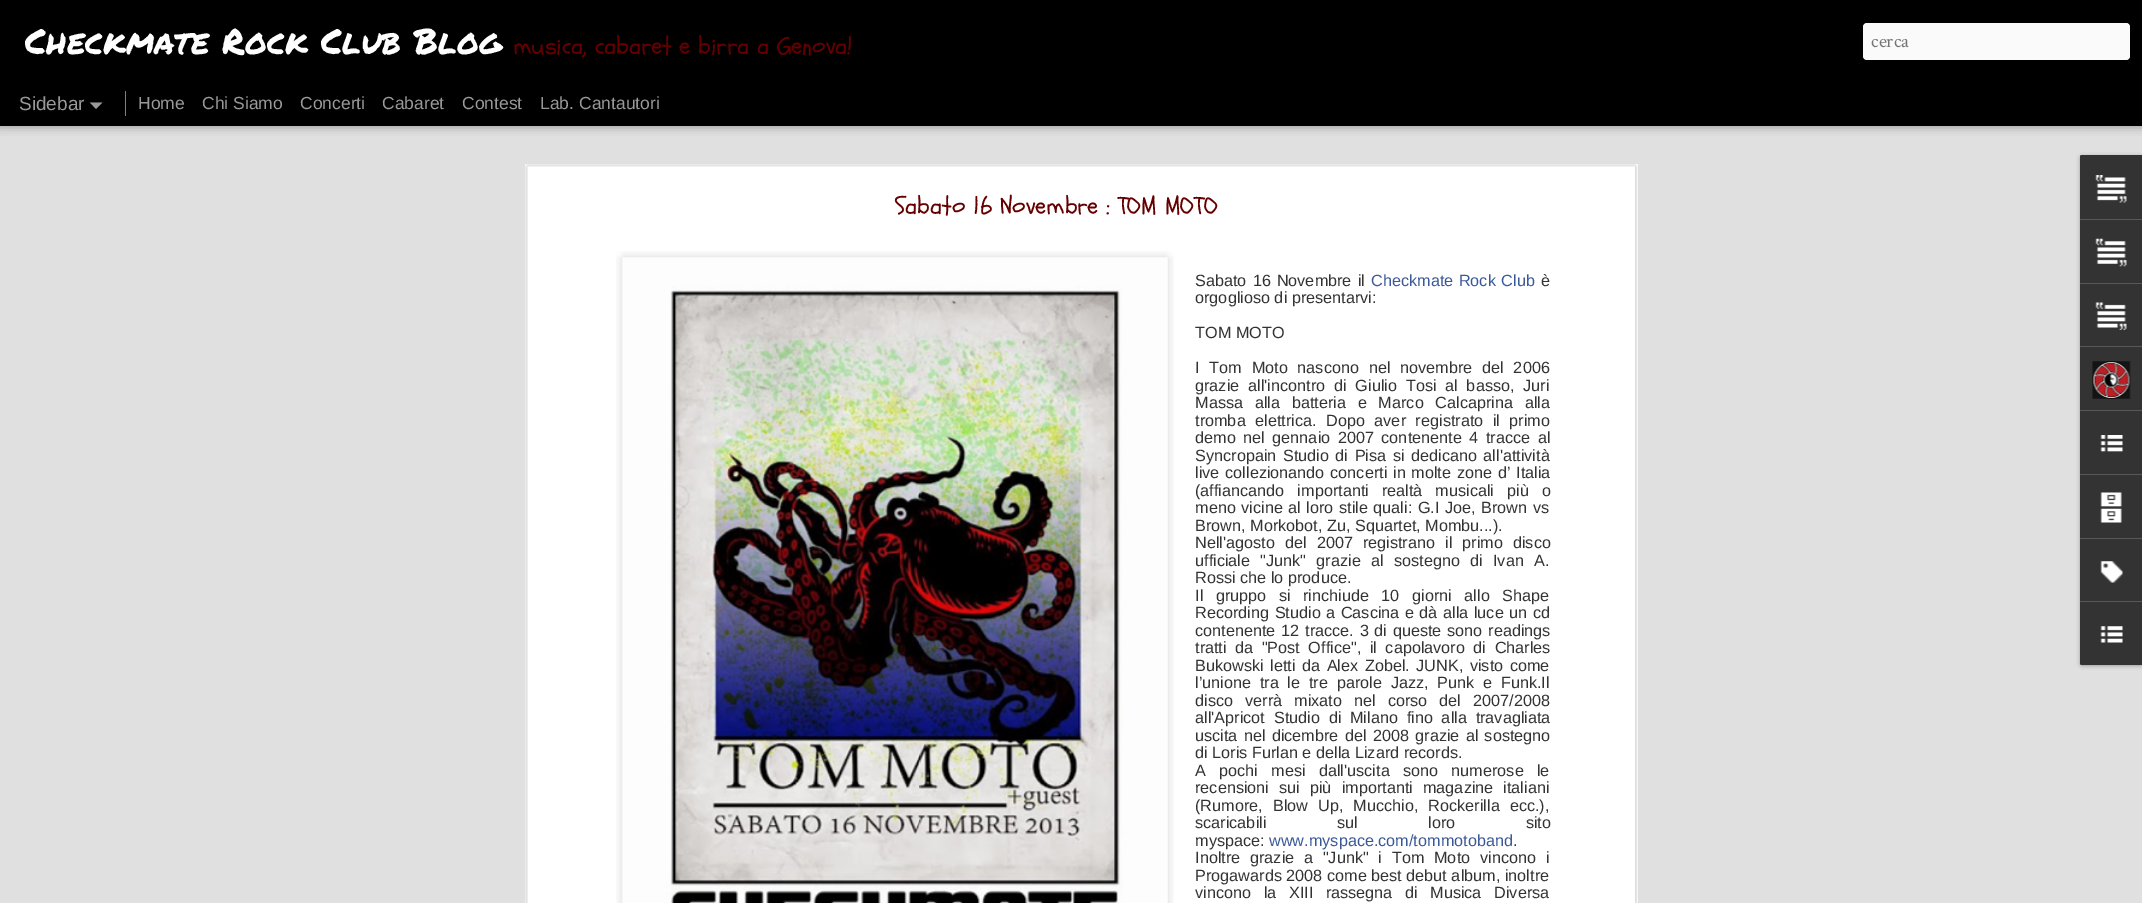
%!PS
<< /PageSize [2142 903] /PageUsesTransparency true >> setpagedevice
/mt/moveto load def
/li/lineto load def
/ct/curveto load def
/cp/closepath load def
/fl/fill load def
/co { dup -16 bitshift 255 div exch dup -8 bitshift 255 and 255 div exch 255 and 255 div setrgbcolor } def
/fn { [ exch dup neg 0 0 3 -1 roll 0 0 ] selectfont } def
/tx { co fn moveto show } def
/bx { co rectfill } def
/al { dup .setfillconstantalpha .setstrokeconstantalpha } def
/rr { 5 dict begin { /r /h /w /y /x } { exch def } forall
  x r add y moveto x w add y 2 copy h add r arct x w add y h add x 1 index r arct
  x y h add x y r arct x y 2 copy exch w add exch r arct closepath end } def
/sh { 12 dict begin { /a /b /q /h /w /y /x } { exch def } forall gsave /was 0 def
  9 -2 -9 { dup b mul 4 div /e exch def 1 sub .425 mul 2.718 exch exp 1 add a .99 .min exch div /now exch def
    1 1 now sub 1 was sub div sub al /was now def
    w h .min e 2 mul add 0 gt { x e sub y e sub w e 2 mul add h e 2 mul add
      q e add b .6 mul add w h .min 2 div e add .min 0 .max rr fill } if } for grestore end } def
/im { 5 dict begin { /h /w /y /x /name } { exch def } forall
  gsave x y translate w h scale
  w h 8 [w 0 0 h 0 0] name (r) file false 3 colorimage grestore end } def
0 .pushpdf14devicefilter
0 903 translate 1 -1 scale
4 setmiterlimit
0 0 2142 903 16#000000 bx
16#FAFAFA co
1863 23 267 37 4 rr fl
0 126 2142 777 16#E0E0E0 bx
16#000000 co
0 81 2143 44 0 5 .5 sh
16#999999 co
90 102.5 mt 102.5 102.5 li 96 109 li cp fl
125 91 1 25 16#808080 bx
525 164 1113 739 16#FFFFFF bx
(media/1.raw) 525 164 1113 739 im
(media/2.raw) 616 251 558 652 im
(media/3.raw) 622 257 546 646 im
16#000000 co
2080 156 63 510 2.5 2 .3 sh
16#333333 co
2082.5 155 mt 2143 155 li 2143 665 li 2082.5 665 li 2081 665 2080 664 2080 662.5 ct 2080 157.5 li 2080 156 2081 155 2082.5 155 ct cp fl
2082.5 155 mt 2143 155 li 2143 219 li 2080 219 li 2080 157.5 li 2080 156 2081 155 2082.5 155 ct cp fl
(media/4.raw) 2095 175 32 28 im
2080 219 62 1 16#585858 bx
(media/5.raw) 2095 238 32 29 im
2080 283 62 1 16#585858 bx
(media/6.raw) 2095 302 32 28 im
2080 346 62 1 16#585858 bx
(media/7.raw) 2092 361 39 38 im
2080 410 62 1 16#585858 bx
(media/8.raw) 2100 435 23 17 im
2080 474 62 1 16#585858 bx
(media/9.raw) 2100 492 22 31 im
2080 538 62 1 16#585858 bx
(media/10.raw) 2100 561 23 22 im
16#333333 co
2080 601 mt 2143 601 li 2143 665 li 2082.5 665 li 2081 665 2080 664 2080 662.5 ct cp fl
2080 601 62 1 16#585858 bx
(media/11.raw) 2100 626 23 17 im
(Checkmate Rock Club Blog) 25 54 /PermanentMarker-Regular 35 16#FFFFFF tx
(musica, cabaret e birra a Genova!) 513 54 /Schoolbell-Regular 25 16#660000 tx
(cerca) 1871 47 /CrimsonText-Regular 19 16#757575 tx
(Sidebar) 19 110 /LiberationSans-Regular 19 16#999999 tx
(Home) 138 109 /LiberationSans-Regular 17.5 16#999999 tx
(Chi Siamo) 202 109 /LiberationSans-Regular 17.5 16#999999 tx
(Concerti) 300 109 /LiberationSans-Regular 17.5 16#999999 tx
(Cabaret) 382 109 /LiberationSans-Regular 17.5 16#999999 tx
(Contest) 462 109 /LiberationSans-Regular 17.5 16#999999 tx
(Lab. Cantautori) 540 109 /LiberationSans-Regular 17.5 16#999999 tx
(Sabato 16 Novembre : TOM MOTO) 895 214 /Schoolbell-Regular 25 16#660000 tx
/LiberationSans-Regular 16.25 fn
16#333333 co
1195 286 mt 1.5 0 32 (Sabato 16 Novembre il) widthshow
16#3B5998 co
1371 286 mt 1 0 32 (Checkmate Rock Club) widthshow
(è) 1541 286 /LiberationSans-Regular 16.25 16#333333 tx
(orgoglioso di presentarvi:) 1195 303 /LiberationSans-Regular 16.25 16#333333 tx
(TOM MOTO) 1195 338 /LiberationSans-Regular 16.25 16#333333 tx
1195 373 mt 5.25 0 32 (I Tom Moto nascono nel novembre del 2006) widthshow
1195 391 mt 4.25 0 32 (grazie all'incontro di Giulio Tosi al basso, Juri) widthshow
1195 408 mt 7.25 0 32 (Massa alla batteria e Marco Calcaprina alla) widthshow
1195 426 mt 5 0 32 (tromba elettrica. Dopo aver registrato il primo) widthshow
1195 443 mt 3 0 32 (demo nel gennaio 2007 contenente 4 tracce al) widthshow
1195 461 mt 2 0 32 (Syncropain Studio di Pisa si dedicano all'attività) widthshow
1195 478 mt 1.25 0 32 (live collezionando concerti in molte zone d’ Italia) widthshow
1195 496 mt 8.5 0 32 (\(affiancando importanti realtà musicali più o) widthshow
1195 513 mt 1 0 32 (meno vicine al loro stile quali: G.I Joe, Brown vs) widthshow
(Brown, Morkobot, Zu, Squartet, Mombu...\).) 1195 531 /LiberationSans-Regular 16.25 16#333333 tx
1195 548 mt 5.5 0 32 (Nell'agosto del 2007 registrano il primo disco) widthshow
1195 566 mt 5.75 0 32 (ufficiale "Junk" grazie al sostegno di Ivan A.) widthshow
(Rossi che lo produce.) 1195 583 /LiberationSans-Regular 16.25 16#333333 tx
1195 601 mt 8 0 32 (Il gruppo si rinchiude 10 giorni allo Shape) widthshow
1195 618 mt 1 0 32 (Recording Studio a Cascina e dà alla luce un cd) widthshow
1195 636 mt 1.25 0 32 (contenente 12 tracce. 3 di queste sono readings) widthshow
1195 653 mt 4 0 32 (tratti da "Post Office", il capolavoro di Charles) widthshow
1195 671 mt 2 0 32 (Bukowski letti da Alex Zobel. JUNK, visto come) widthshow
1195 688 mt 4.25 0 32 (l’unione tra le tre parole Jazz, Punk e Funk.Il) widthshow
1195 706 mt 7.5 0 32 (disco verrà mixato nel corso del 2007/2008) widthshow
1195 723 mt 4.25 0 32 (all'Apricot Studio di Milano fino alla travagliata) widthshow
1195 741 mt 1.75 0 32 (uscita nel dicembre del 2008 grazie al sostegno) widthshow
(di Loris Furlan e della Lizard records.) 1195 758 /LiberationSans-Regular 16.25 16#333333 tx
1195 776 mt 8.75 0 32 (A pochi mesi dall'uscita sono numerose le) widthshow
1195 793 mt 5.5 0 32 (recensioni sui più importanti magazine italiani) widthshow
1195 811 mt 5.5 0 32 (\(Rumore, Blow Up, Mucchio, Rockerilla ecc.\),) widthshow
1195 828 mt 66 0 32 (scaricabili sul loro sito) widthshow
(myspace:) 1195 846 /LiberationSans-Regular 16.25 16#333333 tx
(www.myspace.com/tommotoband) 1269 846 /LiberationSans-Regular 16.25 16#3B5998 tx
(.) 1513 846 /LiberationSans-Regular 16.25 16#333333 tx
1195 863 mt 5.25 0 32 (Inoltre grazie a "Junk" i Tom Moto vincono i) widthshow
(Progawards 2008 come best debut album, inoltre) 1195 881 /LiberationSans-Regular 16.25 16#333333 tx
1195 898 mt 8 0 32 (vincono la XIII rassegna di Musica Diversa) widthshow
.poppdf14devicefilter showpage
